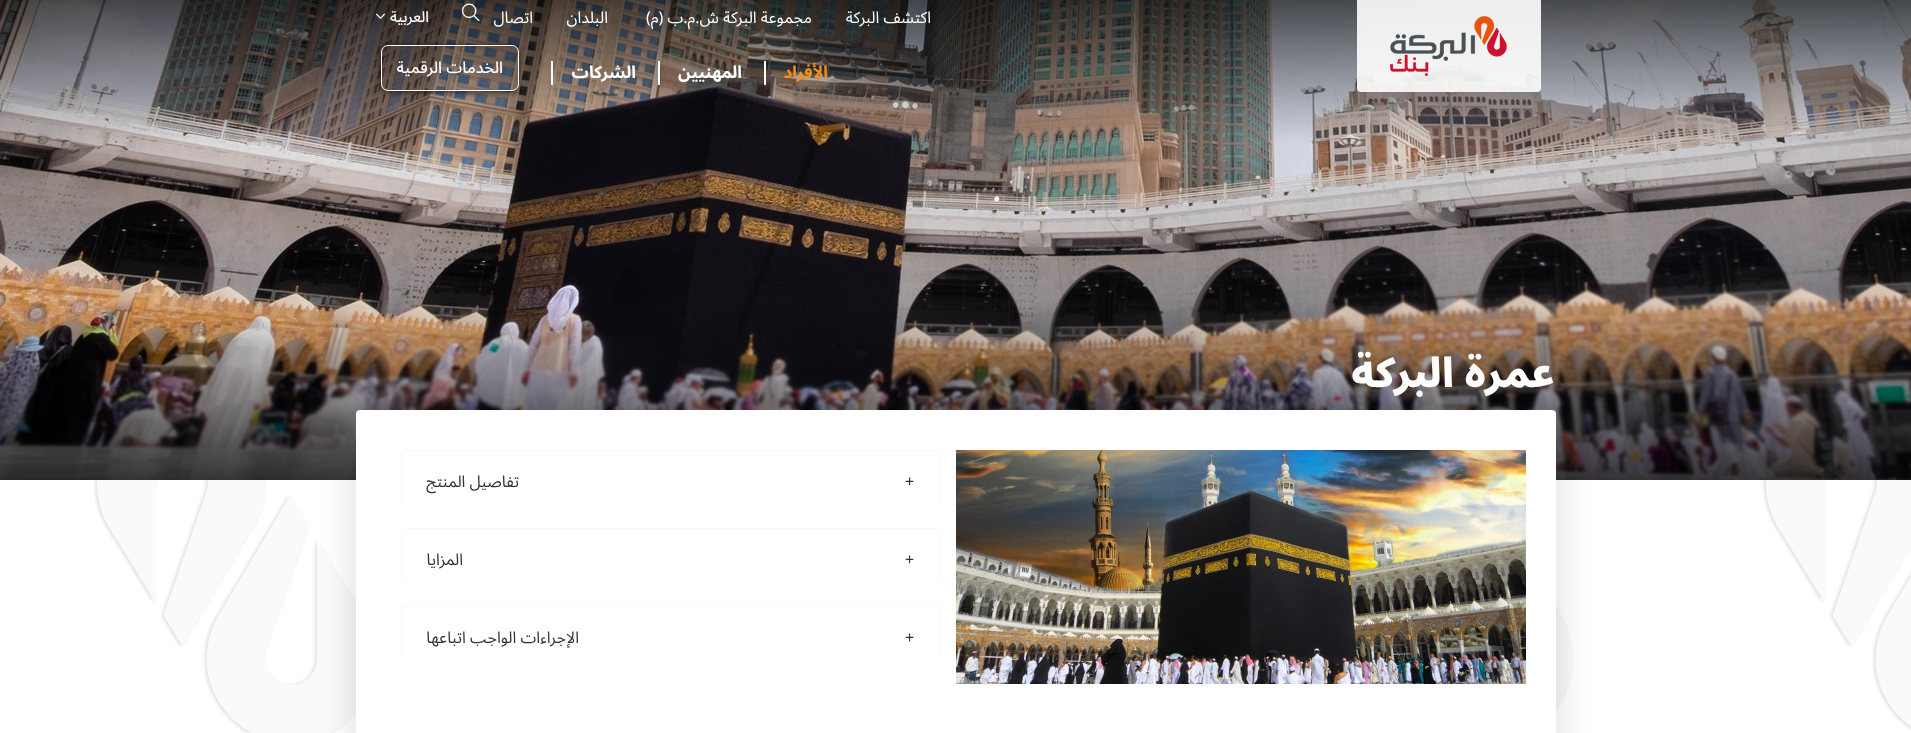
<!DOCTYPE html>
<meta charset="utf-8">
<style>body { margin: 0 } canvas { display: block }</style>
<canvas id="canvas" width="1911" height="733"></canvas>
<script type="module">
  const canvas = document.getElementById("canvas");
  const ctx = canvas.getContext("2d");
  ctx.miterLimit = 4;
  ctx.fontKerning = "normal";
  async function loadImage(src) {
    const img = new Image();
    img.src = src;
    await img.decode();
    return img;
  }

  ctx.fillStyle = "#ffffff";
  ctx.fillRect(0, 0, 1911, 733);
  ctx.drawImage(await loadImage("img1.png"), 94, 480, 1817, 253);
  ctx.drawImage(await loadImage("img5.png"), 0, 0, 1911, 480);
  ctx.fillStyle = "rgba(255, 255, 255, 0.9)";
  ctx.beginPath();
  ctx.roundRect(1357, 0, 184, 92, [0, 0, 4, 4]);
  ctx.fill();
  ctx.drawImage(await loadImage("img2.png"), 1390, 16, 117, 60);
  ctx.direction = "rtl";
  ctx.font = "16px Noto Sans Arabic";
  ctx.fillStyle = "#ffffff";
  ctx.fillText("اكتشف البركة", 931, 23);
  ctx.fillText("مجموعة البركة ش.م.ب (م)", 812, 23);
  ctx.fillText("البلدان", 608, 23);
  ctx.fillText("اتصال", 533, 23);
  ctx.drawImage(await loadImage("img3.png"), 462, 3, 18, 18);
  ctx.font = "500 15px Noto Sans Arabic";
  ctx.fillText("العربية", 429, 22);
  ctx.drawImage(await loadImage("img4.png"), 376, 13, 9, 6);
  ctx.font = "bold 17px Noto Sans Arabic";
  ctx.fillStyle = "#f78f1d";
  ctx.fillText("الأفراد", 828, 78);
  ctx.fillStyle = "#ffffff";
  ctx.fillRect(764, 61, 2, 24);
  ctx.fillText("المهنيين", 742, 78);
  ctx.fillRect(658, 61, 2, 24);
  ctx.fillText("الشركات", 636, 78);
  ctx.fillRect(551, 61, 2, 24);
  ctx.save();
  ctx.beginPath();
  ctx.moveTo(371, 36);
  ctx.lineTo(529, 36);
  ctx.lineTo(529, 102);
  ctx.lineTo(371, 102);
  ctx.closePath();
  ctx.moveTo(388, 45);
  ctx.lineTo(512, 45);
  ctx.bezierCurveTo(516, 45, 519, 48, 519, 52);
  ctx.lineTo(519, 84);
  ctx.bezierCurveTo(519, 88, 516, 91, 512, 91);
  ctx.lineTo(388, 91);
  ctx.bezierCurveTo(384, 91, 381, 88, 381, 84);
  ctx.lineTo(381, 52);
  ctx.bezierCurveTo(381, 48, 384, 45, 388, 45);
  ctx.closePath();
  ctx.clip("evenodd");
  ctx.fillStyle = "rgba(0, 0, 0, 0.7)";
  ctx.filter = "blur(3px)";
  ctx.beginPath();
  ctx.roundRect(381, 46, 138, 46, 7);
  ctx.fill();
  ctx.filter = "none";
  ctx.restore();
  ctx.beginPath();
  ctx.roundRect(381.5, 45.5, 137, 45, 6.5);
  ctx.strokeStyle = "#ffffff";
  ctx.stroke();
  ctx.font = "500 16px Noto Sans Arabic";
  ctx.fillText("الخدمات الرقمية", 503, 73);
  ctx.font = "900 40px Noto Sans Arabic";
  ctx.fillText("عمرة البركة", 1555, 387);
  ctx.fillStyle = "rgba(0, 0, 0, 0.12)";
  ctx.filter = "blur(15px)";
  ctx.beginPath();
  ctx.roundRect(351, 411, 1210, 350, 9);
  ctx.fill();
  ctx.filter = "none";
  ctx.fillStyle = "#ffffff";
  ctx.beginPath();
  ctx.roundRect(356, 410, 1200, 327, 4);
  ctx.fill();
  ctx.drawImage(await loadImage("img6.png"), 956, 450, 570, 234);
  ctx.fillStyle = "#f7f7f7";
  ctx.beginPath();
  ctx.moveTo(405, 450);
  ctx.lineTo(937, 450);
  ctx.bezierCurveTo(939, 450, 941, 452, 941, 454);
  ctx.lineTo(941, 500);
  ctx.bezierCurveTo(941, 502, 939, 504, 937, 504);
  ctx.lineTo(405, 504);
  ctx.bezierCurveTo(403, 504, 401, 502, 401, 500);
  ctx.lineTo(401, 454);
  ctx.bezierCurveTo(401, 452, 403, 450, 405, 450);
  ctx.closePath();
  ctx.moveTo(405, 451);
  ctx.lineTo(937, 451);
  ctx.bezierCurveTo(939, 451, 940, 452, 940, 454);
  ctx.lineTo(940, 500);
  ctx.bezierCurveTo(940, 502, 939, 504, 937, 504);
  ctx.lineTo(405, 504);
  ctx.bezierCurveTo(403, 504, 402, 502, 402, 500);
  ctx.lineTo(402, 454);
  ctx.bezierCurveTo(402, 452, 403, 451, 405, 451);
  ctx.closePath();
  ctx.fill("evenodd");
  ctx.direction = "ltr";
  ctx.font = "16px Noto Sans Arabic";
  ctx.fillStyle = "#333333";
  ctx.fillText("+", 905, 487);
  ctx.direction = "rtl";
  ctx.fillText("تفاصيل المنتج", 519, 487);
  ctx.fillStyle = "#f7f7f7";
  ctx.beginPath();
  ctx.moveTo(405, 528);
  ctx.lineTo(937, 528);
  ctx.bezierCurveTo(939, 528, 941, 530, 941, 532);
  ctx.lineTo(941, 578);
  ctx.bezierCurveTo(941, 580, 939, 582, 937, 582);
  ctx.lineTo(405, 582);
  ctx.bezierCurveTo(403, 582, 401, 580, 401, 578);
  ctx.lineTo(401, 532);
  ctx.bezierCurveTo(401, 530, 403, 528, 405, 528);
  ctx.closePath();
  ctx.moveTo(405, 529);
  ctx.lineTo(937, 529);
  ctx.bezierCurveTo(939, 529, 940, 530, 940, 532);
  ctx.lineTo(940, 578);
  ctx.bezierCurveTo(940, 580, 939, 582, 937, 582);
  ctx.lineTo(405, 582);
  ctx.bezierCurveTo(403, 582, 402, 580, 402, 578);
  ctx.lineTo(402, 532);
  ctx.bezierCurveTo(402, 530, 403, 529, 405, 529);
  ctx.closePath();
  ctx.fill("evenodd");
  ctx.direction = "ltr";
  ctx.fillStyle = "#333333";
  ctx.fillText("+", 905, 565);
  ctx.direction = "rtl";
  ctx.fillText("المزايا", 463, 565);
  ctx.fillStyle = "#f7f7f7";
  ctx.beginPath();
  ctx.moveTo(405, 606);
  ctx.lineTo(937, 606);
  ctx.bezierCurveTo(939, 606, 941, 608, 941, 610);
  ctx.lineTo(941, 656);
  ctx.bezierCurveTo(941, 658, 939, 660, 937, 660);
  ctx.lineTo(405, 660);
  ctx.bezierCurveTo(403, 660, 401, 658, 401, 656);
  ctx.lineTo(401, 610);
  ctx.bezierCurveTo(401, 608, 403, 606, 405, 606);
  ctx.closePath();
  ctx.moveTo(405, 607);
  ctx.lineTo(937, 607);
  ctx.bezierCurveTo(939, 607, 940, 608, 940, 610);
  ctx.lineTo(940, 656);
  ctx.bezierCurveTo(940, 658, 939, 660, 937, 660);
  ctx.lineTo(405, 660);
  ctx.bezierCurveTo(403, 660, 402, 658, 402, 656);
  ctx.lineTo(402, 610);
  ctx.bezierCurveTo(402, 608, 403, 607, 405, 607);
  ctx.closePath();
  ctx.fill("evenodd");
  ctx.direction = "ltr";
  ctx.fillStyle = "#333333";
  ctx.fillText("+", 905, 643);
  ctx.direction = "rtl";
  ctx.fillText("الإجراءات الواجب اتباعها", 579, 643);
</script>
